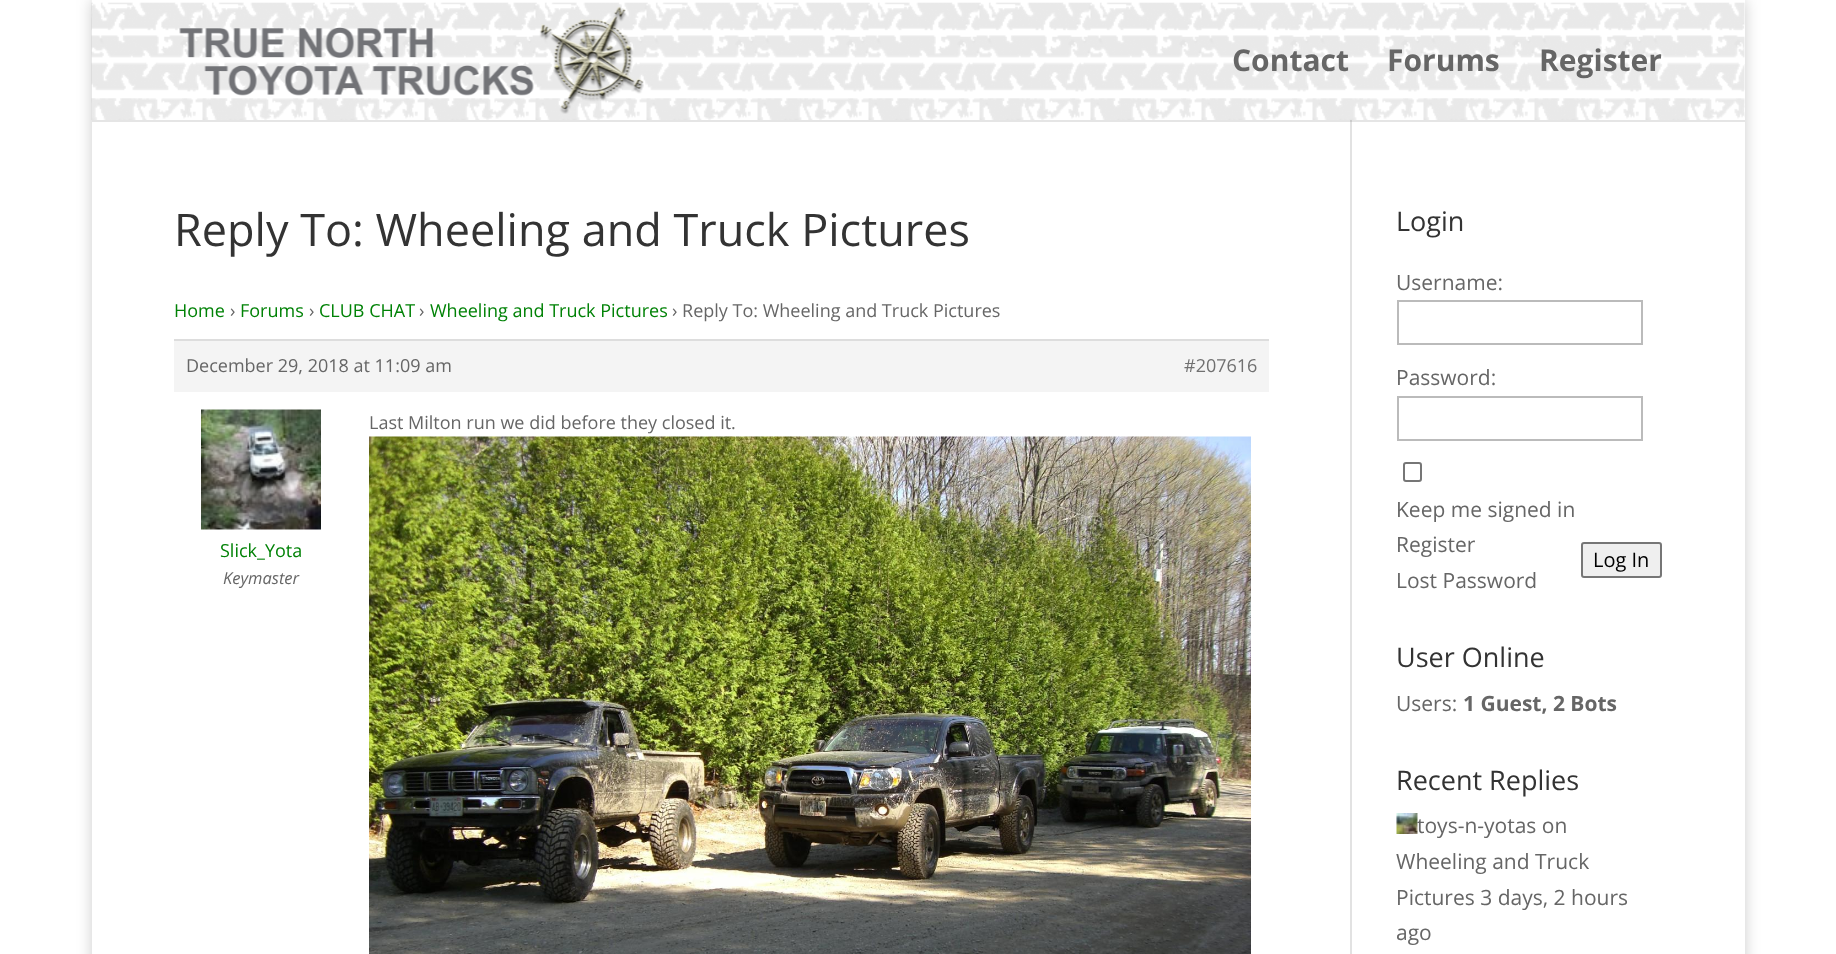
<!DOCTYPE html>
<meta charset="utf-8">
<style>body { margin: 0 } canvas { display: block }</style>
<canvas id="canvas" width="1836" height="954"></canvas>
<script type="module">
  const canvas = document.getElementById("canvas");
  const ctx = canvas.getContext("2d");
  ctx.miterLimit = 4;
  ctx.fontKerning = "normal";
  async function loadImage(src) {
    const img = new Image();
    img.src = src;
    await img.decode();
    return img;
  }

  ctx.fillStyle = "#ffffff";
  ctx.fillRect(0, 0, 1836, 954);
  ctx.fillStyle = "rgba(0, 0, 0, 0.2)";
  ctx.filter = "blur(7.5px)";
  ctx.beginPath();
  ctx.rect(92, 0, 1653, 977);
  ctx.fill();
  ctx.filter = "none";
  ctx.fillStyle = "#ffffff";
  ctx.fillRect(92, 120, 1653, 834);
  ctx.fillStyle = "#e2e2e2";
  ctx.fillRect(1350, 120, 2, 834);
  ctx.fillStyle = "rgba(0, 0, 0, 0.1)";
  ctx.beginPath();
  ctx.moveTo(92, 120);
  ctx.lineTo(92, 122);
  ctx.lineTo(1745, 122);
  ctx.lineTo(1745, 2);
  ctx.lineTo(1744, 2);
  ctx.lineTo(1744, 120);
  ctx.closePath();
  ctx.fill();
  ctx.fillStyle = "#ffffff";
  ctx.fillRect(92, 0, 1653, 120);
  ctx.drawImage(await loadImage("img1.png"), 91, 2, 1654, 118);
  ctx.drawImage(await loadImage("img2.png"), 179, 7, 465, 107);
  ctx.font = "bold 30px Open Sans";
  ctx.fillStyle = "#666666";
  ctx.fillText("Contact", 1232, 71);
  ctx.fillText("Forums", 1387, 71);
  ctx.fillText("Register", 1539, 71);
  ctx.font = "45px Open Sans";
  ctx.fillStyle = "#333333";
  ctx.fillText("Reply To: Wheeling and Truck Pictures", 174, 246);
  ctx.font = "18px Open Sans";
  ctx.fillStyle = "#008206";
  ctx.fillText("Home", 174, 317);
  ctx.fillStyle = "#666666";
  ctx.fillText("›", 230, 317);
  ctx.fillStyle = "#008206";
  ctx.fillText("Forums", 240, 317);
  ctx.fillStyle = "#666666";
  ctx.fillText("›", 309, 317);
  ctx.fillStyle = "#008206";
  ctx.fillText("CLUB CHAT", 319, 317);
  ctx.fillStyle = "#666666";
  ctx.fillText("›", 419, 317);
  ctx.fillStyle = "#008206";
  ctx.fillText("Wheeling and Truck Pictures", 430, 317);
  ctx.fillStyle = "#666666";
  ctx.fillText("› Reply To: Wheeling and Truck Pictures", 672, 317);
  ctx.fillStyle = "#f4f4f4";
  ctx.fillRect(174, 341, 1095, 51);
  ctx.fillStyle = "#dddddd";
  ctx.fillRect(174, 339, 1095, 2);
  ctx.fillStyle = "#666666";
  ctx.fillText("December 29, 2018 at 11:09 am", 186, 372);
  ctx.fillStyle = "#707070";
  ctx.fillText("#207616", 1184, 372);
  ctx.fillStyle = "#666666";
  ctx.fillText("Last Milton run we did before they closed it.", 369, 429);
  ctx.drawImage(await loadImage("img3.png"), 369, 436, 882, 518);
  ctx.drawImage(await loadImage("img4.png"), 201, 409, 120, 121);
  ctx.fillStyle = "#008206";
  ctx.fillText("Slick_Yota", 220, 557);
  ctx.font = "italic 16.5px Open Sans";
  ctx.fillStyle = "#666666";
  ctx.fillText("Keymaster", 223, 584);
  ctx.font = "27px Open Sans";
  ctx.fillStyle = "#333333";
  ctx.fillText("Login", 1396, 231);
  ctx.font = "21px Open Sans";
  ctx.fillStyle = "#666666";
  ctx.fillText("Username:", 1396, 290);
  ctx.strokeStyle = "#bbbbbb";
  ctx.lineWidth = 2;
  ctx.strokeRect(1398, 301, 244, 43);
  ctx.fillText("Password:", 1396, 385);
  ctx.strokeRect(1398, 397, 244, 43);
  ctx.beginPath();
  ctx.roundRect(1404, 463, 17, 18, 2);
  ctx.strokeStyle = "#767676";
  ctx.stroke();
  ctx.fillText("Keep me signed in", 1396, 517);
  ctx.fillText("Register", 1396, 552);
  ctx.fillText("Lost Password", 1396, 588);
  ctx.fillStyle = "#efefef";
  ctx.beginPath();
  ctx.roundRect(1582, 543, 79, 34, 2);
  ctx.fill();
  ctx.stroke();
  ctx.font = "20px Open Sans";
  ctx.fillStyle = "#000000";
  ctx.fillText("Log In", 1593, 567);
  ctx.font = "27px Open Sans";
  ctx.fillStyle = "#333333";
  ctx.fillText("User Online", 1396, 667);
  ctx.font = "21px Open Sans";
  ctx.fillStyle = "#666666";
  ctx.fillText("Users:", 1396, 711);
  ctx.font = "bold 21px Open Sans";
  ctx.fillText("1 Guest, 2 Bots", 1463, 711);
  ctx.font = "27px Open Sans";
  ctx.fillStyle = "#333333";
  ctx.fillText("Recent Replies", 1396, 790);
  ctx.drawImage(await loadImage("img5.png"), 1396, 813, 22, 21);
  ctx.font = "21px Open Sans";
  ctx.fillStyle = "#666666";
  ctx.fillText("toys-n-yotas on", 1417, 833);
  ctx.fillText("Wheeling and Truck", 1396, 869);
  ctx.fillText("Pictures 3 days, 2 hours", 1396, 905);
  ctx.fillText("ago", 1396, 940);
</script>
